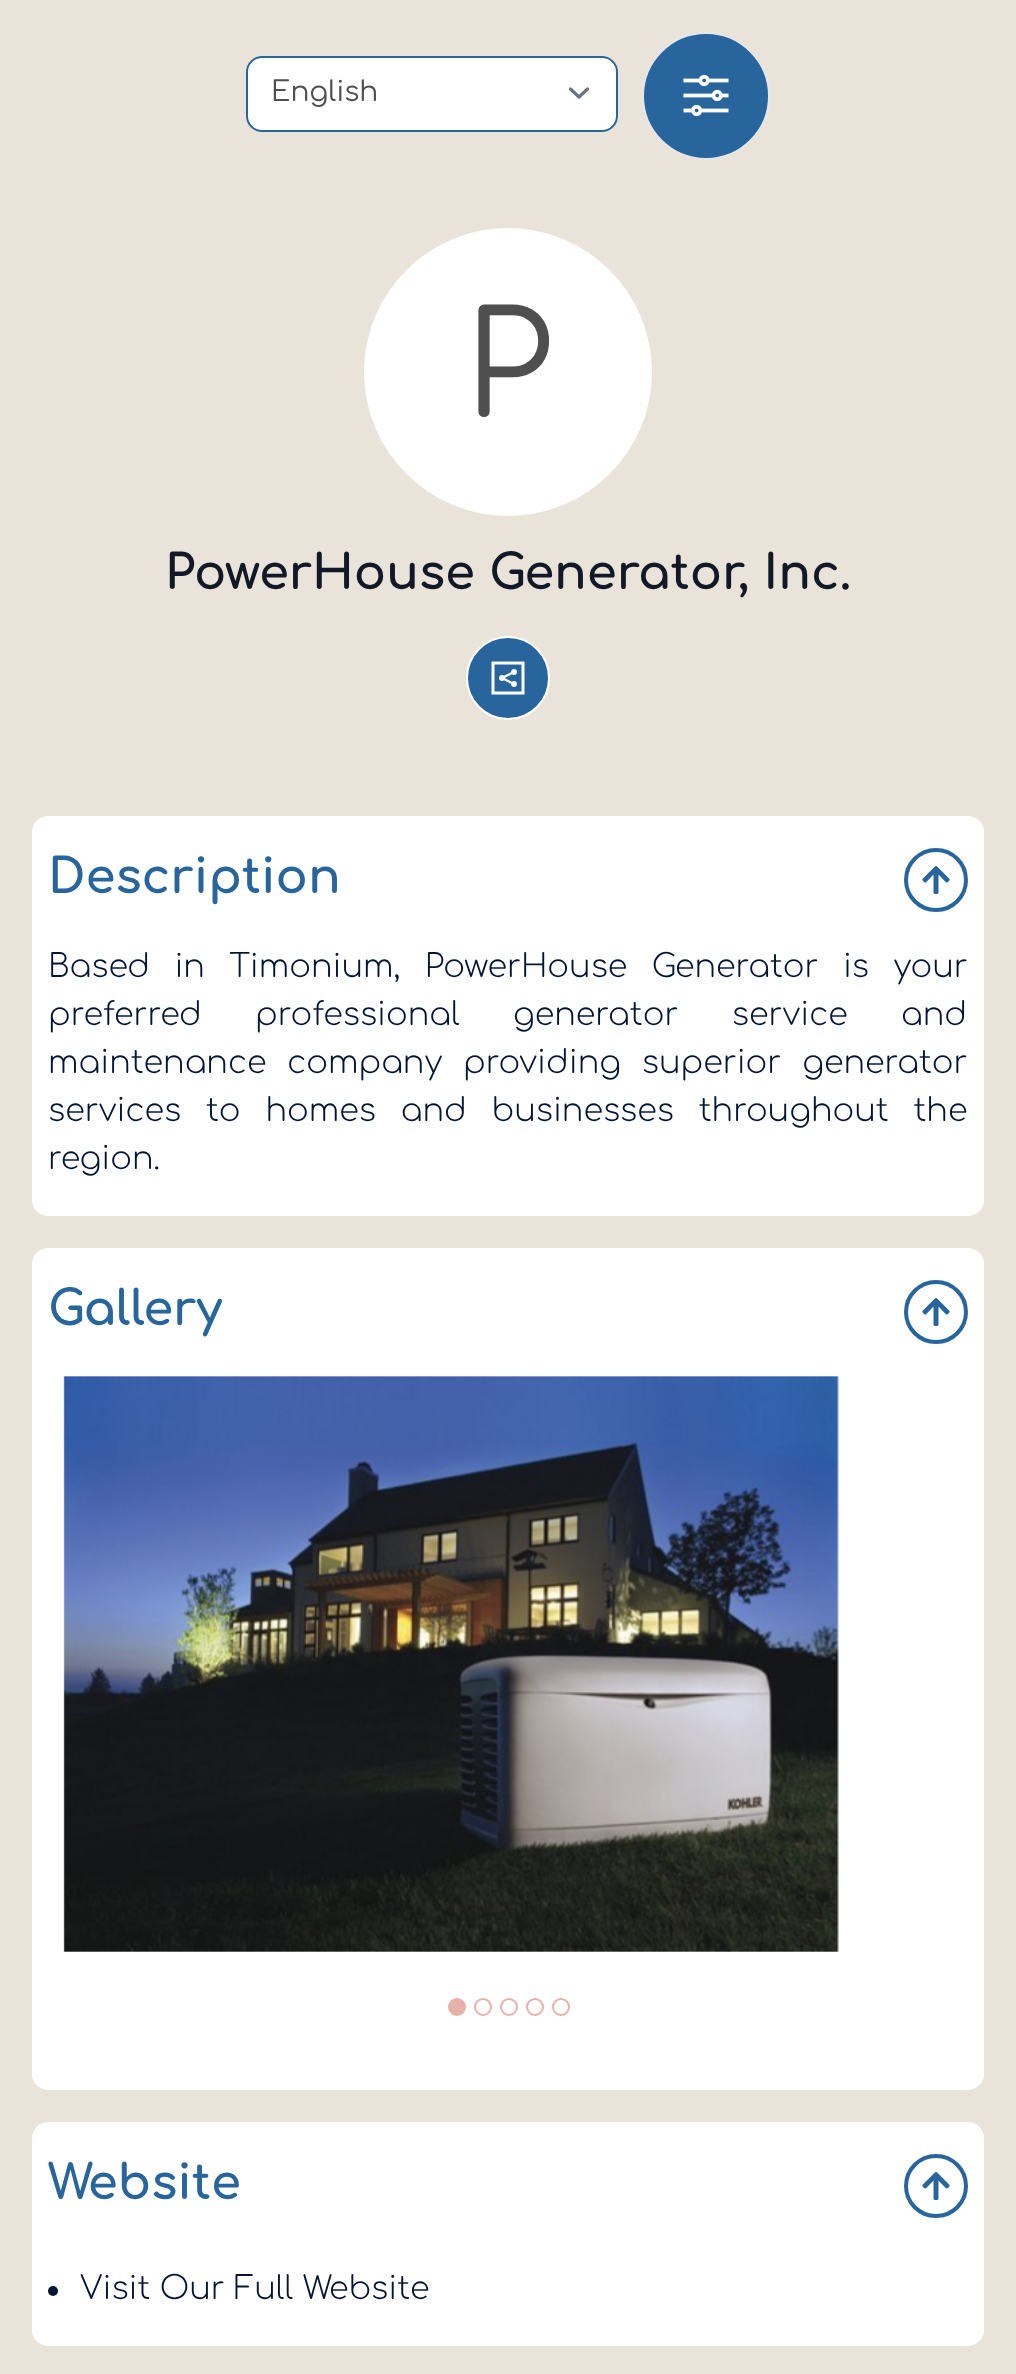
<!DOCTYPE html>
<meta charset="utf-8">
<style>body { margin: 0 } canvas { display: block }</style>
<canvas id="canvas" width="1016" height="2374"></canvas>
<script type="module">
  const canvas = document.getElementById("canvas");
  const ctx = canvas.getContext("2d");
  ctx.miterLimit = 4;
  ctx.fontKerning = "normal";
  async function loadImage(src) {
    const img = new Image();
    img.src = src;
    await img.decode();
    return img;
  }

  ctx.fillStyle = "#e9e3d9";
  ctx.fillRect(0, 0, 1016, 2374);
  ctx.fillStyle = "#ffffff";
  ctx.beginPath();
  ctx.roundRect(246, 56, 372, 76, 16);
  ctx.fill();
  ctx.beginPath();
  ctx.moveTo(570.5, 89);
  ctx.lineTo(579, 97);
  ctx.lineTo(587.5, 89);
  ctx.strokeStyle = "#6b7280";
  ctx.lineWidth = 3.2;
  ctx.lineCap = "round";
  ctx.lineJoin = "round";
  ctx.stroke();
  ctx.beginPath();
  ctx.roundRect(247, 57, 370, 74, 15);
  ctx.strokeStyle = "#28659c";
  ctx.lineWidth = 2;
  ctx.lineJoin = "miter";
  ctx.stroke();
  ctx.font = "28px Comfortaa";
  ctx.fillStyle = "#4f4f4f";
  ctx.fillText("English", 271, 101);
  ctx.fillStyle = "#28659c";
  ctx.beginPath();
  ctx.arc(706, 96, 63, 0, Math.PI * 2);
  ctx.fill();
  ctx.strokeStyle = "#e5e7eb";
  ctx.stroke();
  ctx.drawImage(await loadImage("img1.png"), 683, 74, 46, 43);
  ctx.fillStyle = "#ffffff";
  ctx.beginPath();
  ctx.arc(508, 372, 144, 0, Math.PI * 2);
  ctx.fill();
  ctx.font = "144px Comfortaa";
  ctx.fillStyle = "#4f4f4f";
  ctx.fillText("P", 464, 417);
  ctx.font = "bold 48px Comfortaa";
  ctx.fillStyle = "#111827";
  ctx.fillText("PowerHouse Generator, Inc.", 165, 589);
  ctx.fillStyle = "#28659c";
  ctx.beginPath();
  ctx.arc(508, 678, 41, 0, Math.PI * 2);
  ctx.fill();
  ctx.strokeStyle = "#ffffff";
  ctx.stroke();
  ctx.drawImage(await loadImage("img2.png"), 491, 661, 34, 34);
  ctx.fillStyle = "#ffffff";
  ctx.beginPath();
  ctx.roundRect(32, 816, 952, 400, 16);
  ctx.fill();
  ctx.fillStyle = "#28659c";
  ctx.fillText("Description", 48, 893);
  ctx.beginPath();
  ctx.arc(936, 880, 30, 0, Math.PI * 2);
  ctx.strokeStyle = "#28659c";
  ctx.lineWidth = 4;
  ctx.stroke();
  ctx.drawImage(await loadImage("img3.png"), 922, 866, 28, 28);
  ctx.wordSpacing = "15px";
  ctx.font = "300 32px Comfortaa";
  ctx.fillStyle = "#021633";
  ctx.fillText("Based in Timonium, PowerHouse Generator is your", 48, 977);
  ctx.wordSpacing = "44px";
  ctx.fillText("preferred professional generator service and", 48, 1025);
  ctx.wordSpacing = "11.5px";
  ctx.fillText("maintenance company providing superior generator", 48, 1073);
  ctx.wordSpacing = "15.5px";
  ctx.fillText("services to homes and businesses throughout the", 48, 1121);
  ctx.wordSpacing = "0px";
  ctx.fillText("region.", 48, 1169);
  ctx.fillStyle = "#ffffff";
  ctx.beginPath();
  ctx.roundRect(32, 1248, 952, 842, 16);
  ctx.fill();
  ctx.font = "bold 48px Comfortaa";
  ctx.fillStyle = "#28659c";
  ctx.fillText("Gallery", 48, 1325);
  ctx.beginPath();
  ctx.arc(936, 1312, 30, 0, Math.PI * 2);
  ctx.stroke();
  ctx.drawImage(await loadImage("img3.png"), 922, 1298, 28, 28);
  ctx.drawImage(await loadImage("img4.png"), 63, 1376, 776, 576);
  ctx.fillStyle = "#e6b1a8";
  ctx.beginPath();
  ctx.arc(457, 2007, 8, 0, Math.PI * 2);
  ctx.fill();
  ctx.strokeStyle = "#e6b1a8";
  ctx.lineWidth = 2;
  ctx.stroke();
  ctx.beginPath();
  ctx.arc(483, 2007, 8, 0, Math.PI * 2);
  ctx.stroke();
  ctx.beginPath();
  ctx.arc(509, 2007, 8, 0, Math.PI * 2);
  ctx.stroke();
  ctx.beginPath();
  ctx.arc(535, 2007, 8, 0, Math.PI * 2);
  ctx.stroke();
  ctx.beginPath();
  ctx.arc(561, 2007, 8, 0, Math.PI * 2);
  ctx.stroke();
  ctx.fillStyle = "#ffffff";
  ctx.beginPath();
  ctx.roundRect(32, 2122, 952, 224, 16);
  ctx.fill();
  ctx.fillStyle = "#28659c";
  ctx.fillText("Website", 48, 2199);
  ctx.beginPath();
  ctx.arc(936, 2186, 30, 0, Math.PI * 2);
  ctx.strokeStyle = "#28659c";
  ctx.lineWidth = 4;
  ctx.stroke();
  ctx.drawImage(await loadImage("img3.png"), 922, 2172, 28, 28);
  ctx.fillStyle = "#021633";
  ctx.beginPath();
  ctx.arc(53, 2291, 5, 0, Math.PI * 2);
  ctx.fill();
  ctx.font = "300 32px Comfortaa";
  ctx.fillText("Visit Our Full Website", 80, 2299);
</script>
